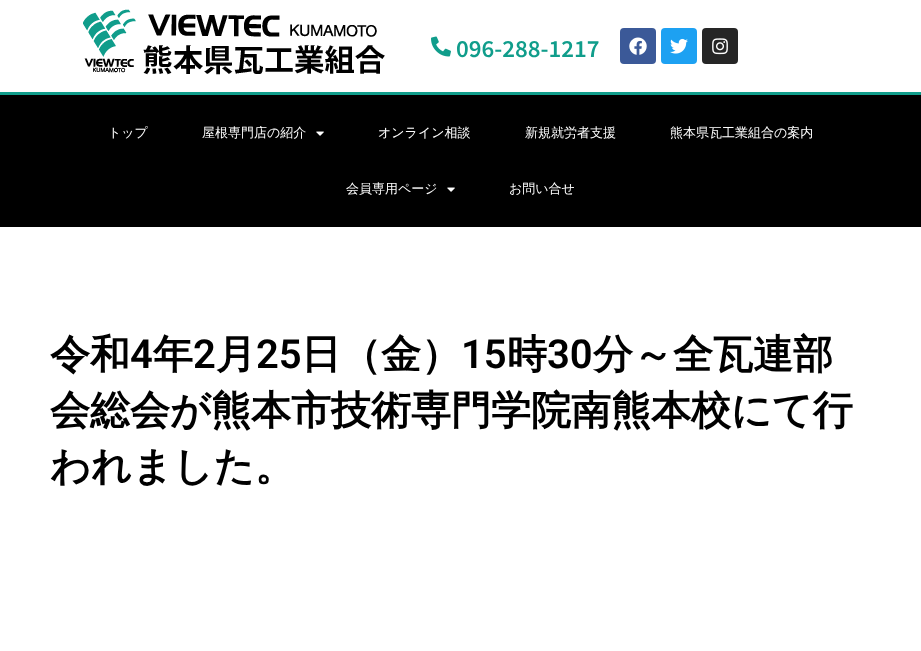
<!DOCTYPE html>
<meta charset="utf-8">
<style>body { margin: 0 } canvas { display: block }</style>
<canvas id="canvas" width="921" height="651"></canvas>
<script type="module">
  const canvas = document.getElementById("canvas");
  const ctx = canvas.getContext("2d");
  ctx.miterLimit = 4;
  ctx.fontKerning = "normal";
  async function loadImage(src) {
    const img = new Image();
    img.src = src;
    await img.decode();
    return img;
  }

  ctx.fillStyle = "#ffffff";
  ctx.fillRect(0, 0, 921, 651);
  ctx.drawImage(await loadImage("img1.png"), 83, 9, 302, 66);
  ctx.drawImage(await loadImage("img2.png"), 431, 36, 20, 21);
  ctx.font = "600 22px Noto Sans JP";
  ctx.fillStyle = "#109d8b";
  ctx.fillText("096-288-1217", 456, 57);
  ctx.fillStyle = "#3b5998";
  ctx.beginPath();
  ctx.roundRect(620, 28, 36, 36, 4);
  ctx.fill();
  ctx.drawImage(await loadImage("img3.png"), 629, 37, 18, 18);
  ctx.fillStyle = "#1da1f2";
  ctx.beginPath();
  ctx.roundRect(661, 28, 36, 36, 4);
  ctx.fill();
  ctx.drawImage(await loadImage("img4.png"), 670, 38, 18, 16);
  ctx.fillStyle = "#262626";
  ctx.beginPath();
  ctx.roundRect(702, 28, 36, 36, 4);
  ctx.fill();
  ctx.drawImage(await loadImage("img5.png"), 712, 38, 16, 17);
  ctx.fillStyle = "#000000";
  ctx.fillRect(0, 95, 921, 132);
  ctx.fillStyle = "#109d8b";
  ctx.fillRect(0, 92, 921, 3);
  ctx.font = "500 13px WenQuanYi Zen Hei";
  ctx.fillStyle = "#ffffff";
  ctx.fillText("トップ", 108, 137);
  ctx.fillText("屋根専門店の紹介", 202, 137);
  ctx.drawImage(await loadImage("img6.png"), 316, 131, 8, 5);
  ctx.fillText("オンライン相談", 378, 137);
  ctx.fillText("新規就労者支援", 525, 137);
  ctx.fillText("熊本県瓦工業組合の案内", 670, 137);
  ctx.fillText("会員専用ページ", 346, 193);
  ctx.drawImage(await loadImage("img6.png"), 447, 187, 8, 5);
  ctx.fillText("お問い合せ", 509, 193);
  ctx.font = "bold 40px WenQuanYi Zen Hei";
  ctx.fillStyle = "#000000";
  ctx.fillText("令和", 50, 368);
  ctx.font = "600 40px Roboto";
  ctx.fillText("4", 130, 368);
  ctx.font = "bold 40px WenQuanYi Zen Hei";
  ctx.fillText("年", 153, 368);
  ctx.font = "600 40px Roboto";
  ctx.fillText("2", 193, 368);
  ctx.font = "bold 40px WenQuanYi Zen Hei";
  ctx.fillText("月", 216, 368);
  ctx.font = "600 40px Roboto";
  ctx.fillText("25", 256, 368);
  ctx.font = "bold 40px WenQuanYi Zen Hei";
  ctx.fillText("日（金）", 301, 368);
  ctx.font = "600 40px Roboto";
  ctx.fillText("15", 461, 368);
  ctx.font = "bold 40px WenQuanYi Zen Hei";
  ctx.fillText("時", 507, 368);
  ctx.font = "600 40px Roboto";
  ctx.fillText("30", 547, 368);
  ctx.font = "bold 40px WenQuanYi Zen Hei";
  ctx.fillText("分～全瓦連部", 593, 368);
  ctx.fillText("会総会が熊本市技術専門学院南熊本校にて行", 50, 424);
  ctx.fillText("われました。", 50, 480);
</script>
